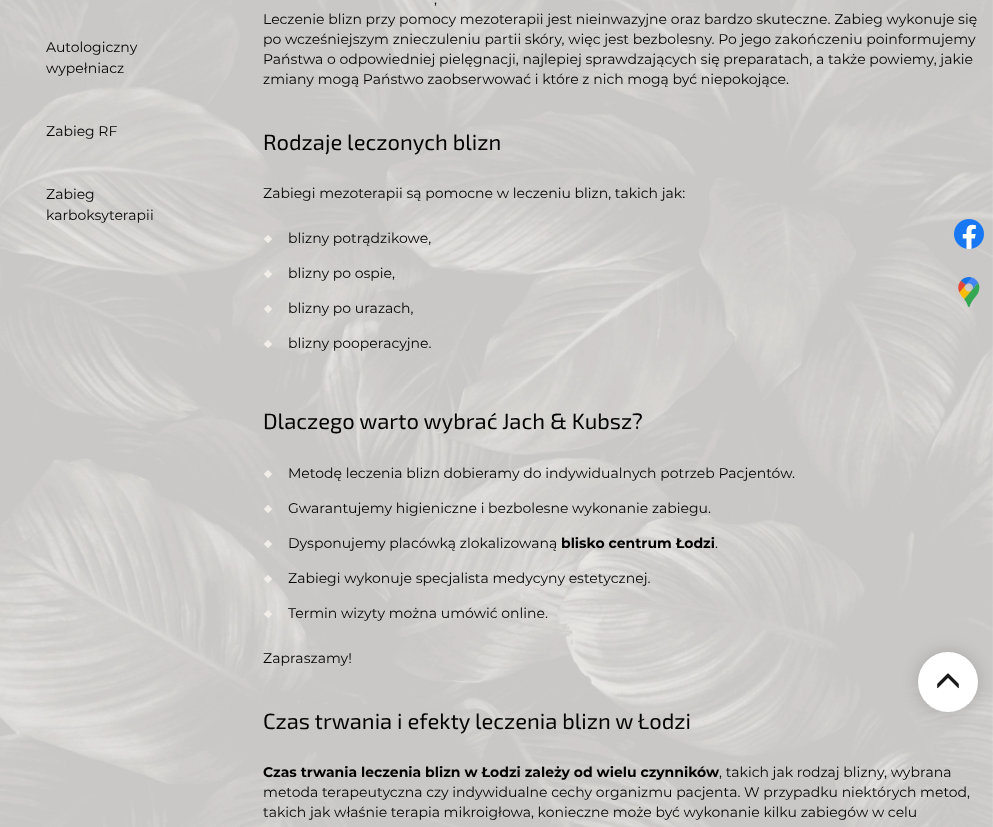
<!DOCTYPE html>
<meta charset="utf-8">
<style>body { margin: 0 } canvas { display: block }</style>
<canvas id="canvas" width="993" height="827"></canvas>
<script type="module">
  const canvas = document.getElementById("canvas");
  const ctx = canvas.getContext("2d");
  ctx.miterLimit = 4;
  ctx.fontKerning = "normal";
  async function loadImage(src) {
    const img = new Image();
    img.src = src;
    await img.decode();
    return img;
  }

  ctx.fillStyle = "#ffffff";
  ctx.fillRect(0, 0, 993, 827);
  ctx.drawImage(await loadImage("img1.png"), 0, 0, 993, 827);
  ctx.font = "14px Montserrat";
  ctx.fillStyle = "#000000";
  ctx.fillText("Autologiczny", 46, 52);
  ctx.fillText("wypełniacz", 46, 73);
  ctx.fillText("Zabieg RF", 46, 136);
  ctx.fillText("Zabieg", 46, 199);
  ctx.fillText("karboksyterapii", 46, 220);
  ctx.fillText(",", 434, 4);
  ctx.fillText("Leczenie blizn przy pomocy mezoterapii jest nieinwazyjne oraz bardzo skuteczne. Zabieg wykonuje się", 263, 24);
  ctx.fillText("po wcześniejszym znieczuleniu partii skóry, więc jest bezbolesny. Po jego zakończeniu poinformujemy", 263, 44);
  ctx.fillText("Państwa o odpowiedniej pielęgnacji, najlepiej sprawdzających się preparatach, a także powiemy, jakie", 263, 64);
  ctx.fillText("zmiany mogą Państwo zaobserwować i które z nich mogą być niepokojące.", 263, 84);
  ctx.font = "22px 'Exo 2'";
  ctx.fillText("Rodzaje leczonych blizn", 263, 150);
  ctx.font = "14px Montserrat";
  ctx.fillText("Zabiegi mezoterapii są pomocne w leczeniu blizn, takich jak:", 263, 198);
  ctx.drawImage(await loadImage("img2.png"), 264, 235, 8, 8);
  ctx.fillText("blizny potrądzikowe,", 288, 243);
  ctx.drawImage(await loadImage("img3.png"), 264, 270, 8, 8);
  ctx.fillText("blizny po ospie,", 288, 278);
  ctx.drawImage(await loadImage("img4.png"), 264, 305, 8, 8);
  ctx.fillText("blizny po urazach,", 288, 313);
  ctx.drawImage(await loadImage("img5.png"), 264, 340, 8, 8);
  ctx.fillText("blizny pooperacyjne.", 288, 348);
  ctx.font = "22px 'Exo 2'";
  ctx.fillText("Dlaczego warto wybrać Jach & Kubsz?", 263, 429);
  ctx.drawImage(await loadImage("img6.png"), 264, 470, 8, 8);
  ctx.font = "14px Montserrat";
  ctx.fillText("Metodę leczenia blizn dobieramy do indywidualnych potrzeb Pacjentów.", 288, 478);
  ctx.drawImage(await loadImage("img7.png"), 264, 505, 8, 8);
  ctx.fillText("Gwarantujemy higieniczne i bezbolesne wykonanie zabiegu.", 288, 513);
  ctx.drawImage(await loadImage("img8.png"), 264, 540, 8, 8);
  ctx.fillText("Dysponujemy placówką zlokalizowaną", 288, 548);
  ctx.font = "bold 14px Montserrat";
  ctx.fillText("blisko centrum Łodzi", 561, 548);
  ctx.font = "14px Montserrat";
  ctx.fillText(".", 715, 548);
  ctx.drawImage(await loadImage("img9.png"), 264, 575, 8, 8);
  ctx.fillText("Zabiegi wykonuje specjalista medycyny estetycznej.", 288, 583);
  ctx.drawImage(await loadImage("img10.png"), 264, 610, 8, 8);
  ctx.fillText("Termin wizyty można umówić online.", 288, 618);
  ctx.fillText("Zapraszamy!", 263, 663);
  ctx.font = "22px 'Exo 2'";
  ctx.fillText("Czas trwania i efekty leczenia blizn w Łodzi", 263, 729);
  ctx.font = "bold 14px Montserrat";
  ctx.fillText("Czas trwania leczenia blizn w Łodzi zależy od wielu czynników", 263, 777);
  ctx.font = "14px Montserrat";
  ctx.fillText(", takich jak rodzaj blizny, wybrana", 719, 777);
  ctx.fillText("metoda terapeutyczna czy indywidualne cechy organizmu pacjenta. W przypadku niektórych metod,", 263, 797);
  ctx.fillText("takich jak właśnie terapia mikroigłowa, konieczne może być wykonanie kilku zabiegów w celu", 263, 817);
  ctx.drawImage(await loadImage("img11.png"), 954, 219, 30, 30);
  ctx.drawImage(await loadImage("img12.png"), 958, 277, 22, 30);
  ctx.fillStyle = "rgba(0, 0, 0, 0.15)";
  ctx.filter = "blur(8px)";
  ctx.beginPath();
  ctx.roundRect(917, 651, 62, 62, 31);
  ctx.fill();
  ctx.filter = "none";
  ctx.fillStyle = "#ffffff";
  ctx.beginPath();
  ctx.arc(948, 682, 30, 0, Math.PI * 2);
  ctx.fill();
  ctx.drawImage(await loadImage("img13.png"), 937, 673, 22, 16);
</script>
